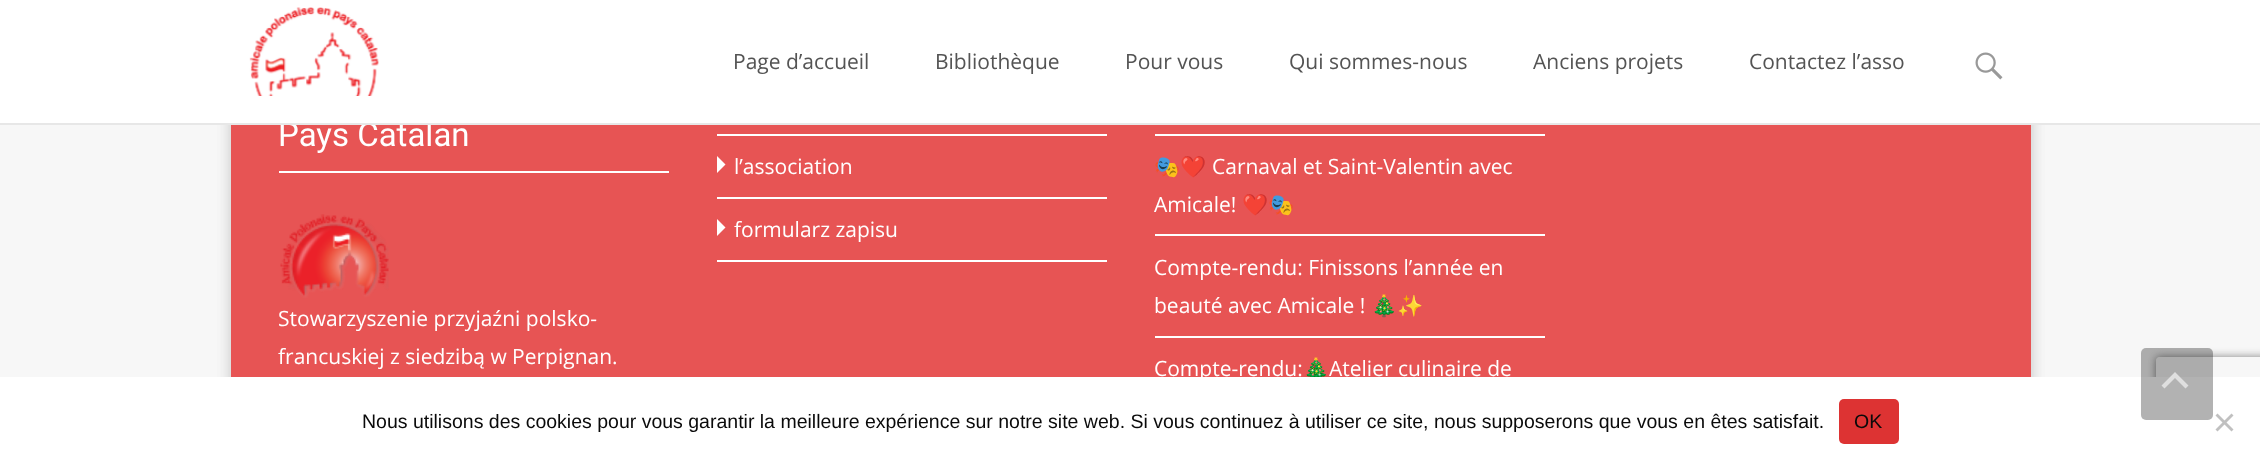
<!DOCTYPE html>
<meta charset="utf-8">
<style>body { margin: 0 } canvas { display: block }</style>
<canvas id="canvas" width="2260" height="467"></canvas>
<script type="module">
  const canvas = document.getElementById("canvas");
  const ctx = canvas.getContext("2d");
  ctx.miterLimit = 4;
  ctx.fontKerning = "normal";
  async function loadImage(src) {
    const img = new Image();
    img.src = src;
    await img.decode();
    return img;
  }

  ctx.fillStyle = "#f7f7f7";
  ctx.fillRect(0, 0, 2260, 467);
  ctx.fillStyle = "rgba(0, 0, 0, 0.1)";
  ctx.filter = "blur(7.5px)";
  ctx.beginPath();
  ctx.roundRect(231, -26, 1800, 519, 3);
  ctx.fill();
  ctx.filter = "none";
  ctx.filter = "blur(7.5px)";
  ctx.beginPath();
  ctx.roundRect(231, -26, 1800, 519, 3);
  ctx.fill();
  ctx.filter = "none";
  ctx.fillStyle = "#ffffff";
  ctx.fillRect(0, 0, 2260, 123);
  ctx.fillStyle = "#e75454";
  ctx.fillRect(231, 125, 1800, 252);
  ctx.font = "33px Roboto";
  ctx.fillStyle = "#ffffff";
  ctx.fillText("Pays Catalan", 278, 146);
  ctx.fillStyle = "#e7e7e7";
  ctx.fillRect(0, 123, 2260, 2);
  ctx.drawImage(await loadImage("img1.png"), 249, 7, 130, 89);
  ctx.font = "21px Open Sans";
  ctx.fillStyle = "#545454";
  ctx.fillText("Page d’accueil", 733, 69);
  ctx.fillText("Bibliothèque", 935, 69);
  ctx.fillText("Pour vous", 1125, 69);
  ctx.fillText("Qui sommes-nous", 1289, 69);
  ctx.fillText("Anciens projets", 1533, 69);
  ctx.fillText("Contactez l’asso", 1749, 69);
  ctx.drawImage(await loadImage("img2.png"), 1975, 52, 28, 28);
  ctx.fillStyle = "#ffffff";
  ctx.fillRect(279, 171, 390, 2);
  ctx.drawImage(await loadImage("img3.png"), 280, 214, 109, 84);
  ctx.fillText("Stowarzyszenie przyjaźni polsko-", 278, 326);
  ctx.fillText("francuskiej z siedzibą w Perpignan.", 278, 364);
  ctx.fillRect(717, 134, 390, 2);
  ctx.fillRect(717, 197, 390, 2);
  ctx.beginPath();
  ctx.moveTo(717, 173);
  ctx.lineTo(725.5, 164.5);
  ctx.lineTo(717, 156);
  ctx.closePath();
  ctx.fill();
  ctx.fillText("l’association", 734, 174);
  ctx.fillRect(717, 260, 390, 2);
  ctx.beginPath();
  ctx.moveTo(717, 236);
  ctx.lineTo(725.5, 227.5);
  ctx.lineTo(717, 219);
  ctx.closePath();
  ctx.fill();
  ctx.fillText("formularz zapisu", 734, 237);
  ctx.fillRect(1155, 134, 390, 2);
  ctx.fillRect(1155, 234, 390, 2);
  ctx.font = "21px Noto Color Emoji";
  ctx.fillText("🎭❤️", 1154, 174);
  ctx.font = "21px Open Sans";
  ctx.fillText("Carnaval et Saint-Valentin avec", 1212, 174);
  ctx.fillText("Amicale!", 1154, 212);
  ctx.font = "21px Noto Color Emoji";
  ctx.fillText("❤️🎭", 1242, 212);
  ctx.fillRect(1155, 336, 390, 2);
  ctx.font = "21px Open Sans";
  ctx.fillText("Compte-rendu: Finissons l’année en", 1154, 275);
  ctx.fillText("beauté avec Amicale !", 1154, 313);
  ctx.font = "21px Noto Color Emoji";
  ctx.fillText("🎄✨", 1371, 313);
  ctx.font = "21px Open Sans";
  ctx.fillText("Compte-rendu:", 1154, 376);
  ctx.font = "21px Noto Color Emoji";
  ctx.fillText("🎄", 1303, 376);
  ctx.font = "21px Open Sans";
  ctx.fillText("Atelier culinaire de", 1329, 376);
  ctx.save();
  ctx.beginPath();
  ctx.moveTo(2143, 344);
  ctx.lineTo(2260, 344);
  ctx.lineTo(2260, 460);
  ctx.lineTo(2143, 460);
  ctx.closePath();
  ctx.moveTo(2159, 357);
  ctx.lineTo(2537, 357);
  ctx.bezierCurveTo(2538.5, 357, 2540, 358.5, 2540, 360);
  ctx.lineTo(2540, 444);
  ctx.bezierCurveTo(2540, 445.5, 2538.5, 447, 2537, 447);
  ctx.lineTo(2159, 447);
  ctx.bezierCurveTo(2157.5, 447, 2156, 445.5, 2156, 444);
  ctx.lineTo(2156, 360);
  ctx.bezierCurveTo(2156, 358.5, 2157.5, 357, 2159, 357);
  ctx.closePath();
  ctx.clip("evenodd");
  ctx.fillStyle = "#808080";
  ctx.filter = "blur(4px)";
  ctx.beginPath();
  ctx.roundRect(2156, 357, 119, 90, 3);
  ctx.fill();
  ctx.filter = "none";
  ctx.restore();
  ctx.fillRect(0, 377, 2260, 90);
  ctx.fillStyle = "rgba(0, 0, 0, 0.3)";
  ctx.beginPath();
  ctx.roundRect(2141, 348, 72, 72, 5);
  ctx.fill();
  ctx.fillStyle = "#dfdfdf";
  ctx.beginPath();
  ctx.moveTo(2161.5, 385.5);
  ctx.lineTo(2175, 372);
  ctx.lineTo(2188.5, 385.5);
  ctx.lineTo(2185.5, 388.5);
  ctx.lineTo(2175, 378);
  ctx.lineTo(2164.5, 388.5);
  ctx.closePath();
  ctx.fill();
  ctx.font = "19.5px Liberation Sans";
  ctx.fillStyle = "#0a0a0a";
  ctx.fillText("Nous utilisons des cookies pour vous garantir la meilleure expérience sur notre site web. Si vous continuez à utiliser ce site, nous supposerons que vous en êtes satisfait.", 362, 428);
  ctx.fillStyle = "#dd3333";
  ctx.beginPath();
  ctx.roundRect(1839, 399, 60, 45, 5);
  ctx.fill();
  ctx.fillStyle = "#0a0a0a";
  ctx.fillText("OK", 1854, 428);
  ctx.fillStyle = "#c0c0c0";
  ctx.beginPath();
  ctx.moveTo(2231.5, 413.5);
  ctx.lineTo(2233.5, 415.5);
  ctx.lineTo(2217.5, 431.5);
  ctx.lineTo(2215.5, 429.5);
  ctx.closePath();
  ctx.fill();
  ctx.beginPath();
  ctx.moveTo(2215.5, 415.5);
  ctx.lineTo(2217.5, 413.5);
  ctx.lineTo(2233.5, 429.5);
  ctx.lineTo(2231.5, 431.5);
  ctx.closePath();
  ctx.fill();
</script>
